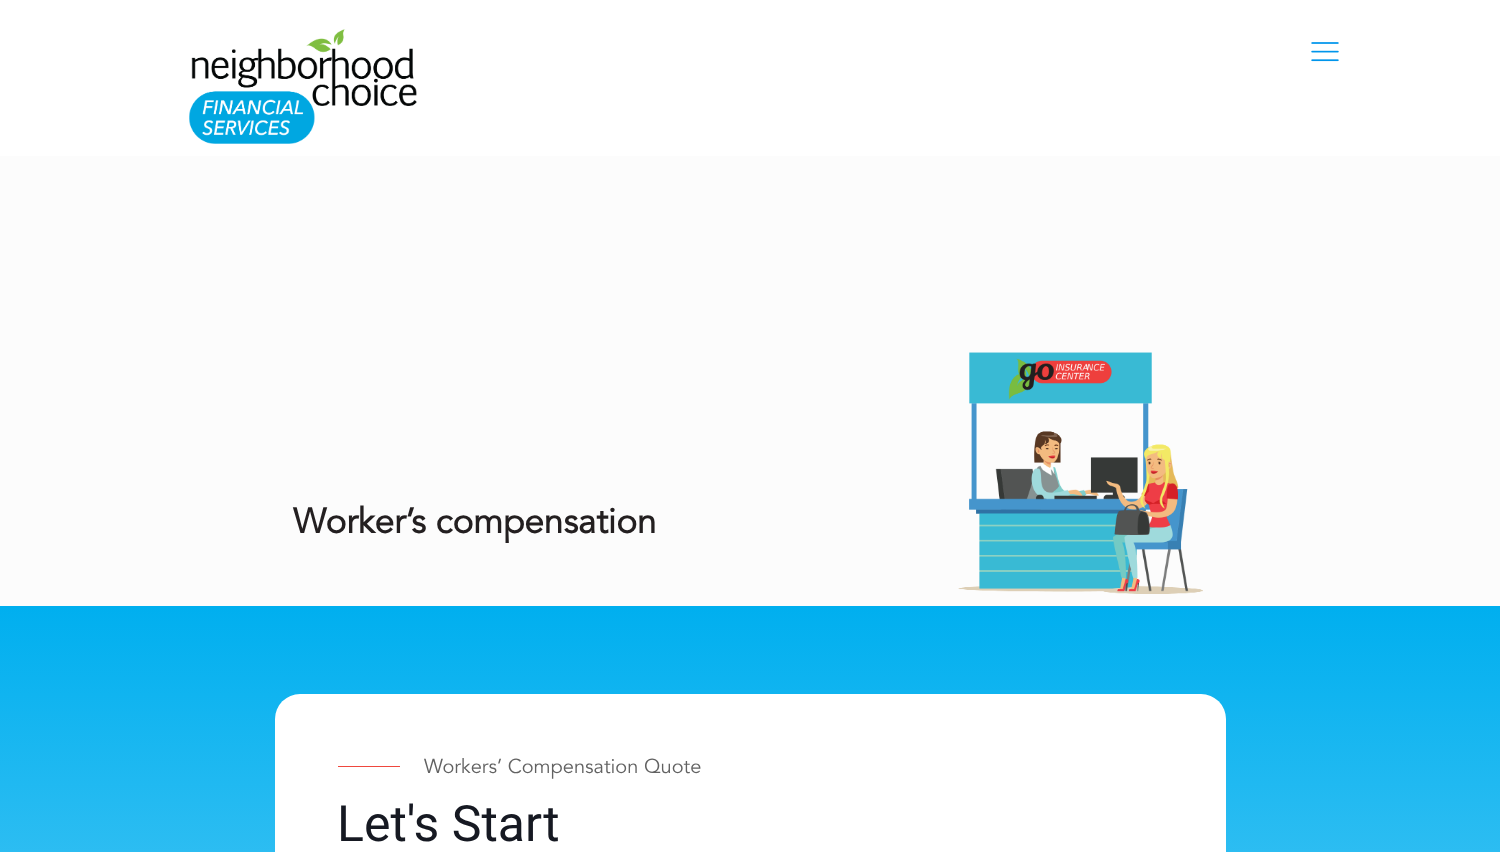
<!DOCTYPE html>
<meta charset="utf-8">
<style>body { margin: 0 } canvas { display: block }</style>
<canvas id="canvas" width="1500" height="852"></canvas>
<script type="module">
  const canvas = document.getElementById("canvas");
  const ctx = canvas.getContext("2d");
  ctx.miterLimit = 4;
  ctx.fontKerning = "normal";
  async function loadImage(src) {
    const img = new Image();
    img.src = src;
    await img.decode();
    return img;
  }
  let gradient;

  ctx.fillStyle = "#fcfcfc";
  ctx.fillRect(0, 0, 1500, 852);
  ctx.fillStyle = "#ffffff";
  ctx.fillRect(0, 0, 1500, 156);
  ctx.drawImage(await loadImage("img1.png"), 189, 29, 228, 115);
  ctx.drawImage(await loadImage("img2.png"), 1311, 42, 28, 20);
  ctx.font = "bold 35px Avenir";
  ctx.fillStyle = "#231f20";
  ctx.fillText("Worker’s compensation", 293, 533);
  ctx.drawImage(await loadImage("img3.png"), 958, 352, 245, 242);
  gradient = ctx.createLinearGradient(750, 606, 750, 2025);
  gradient.addColorStop(0, "#00afef");
  gradient.addColorStop(1, "#ffffff");
  ctx.fillStyle = gradient;
  ctx.fillRect(0, 606, 1500, 246);
  ctx.fillStyle = "#ffffff";
  ctx.beginPath();
  ctx.roundRect(275, 694, 951, 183, 25);
  ctx.fill();
  ctx.font = "20px Avenir";
  ctx.fillStyle = "#626262";
  ctx.fillText("Workers’ Compensation Quote", 424, 773);
  ctx.fillStyle = "#ef483e";
  ctx.fillRect(338, 766, 62, 1);
  ctx.font = "50px Roboto";
  ctx.fillStyle = "#161922";
  ctx.fillText("Let's Start", 337, 841);
</script>
